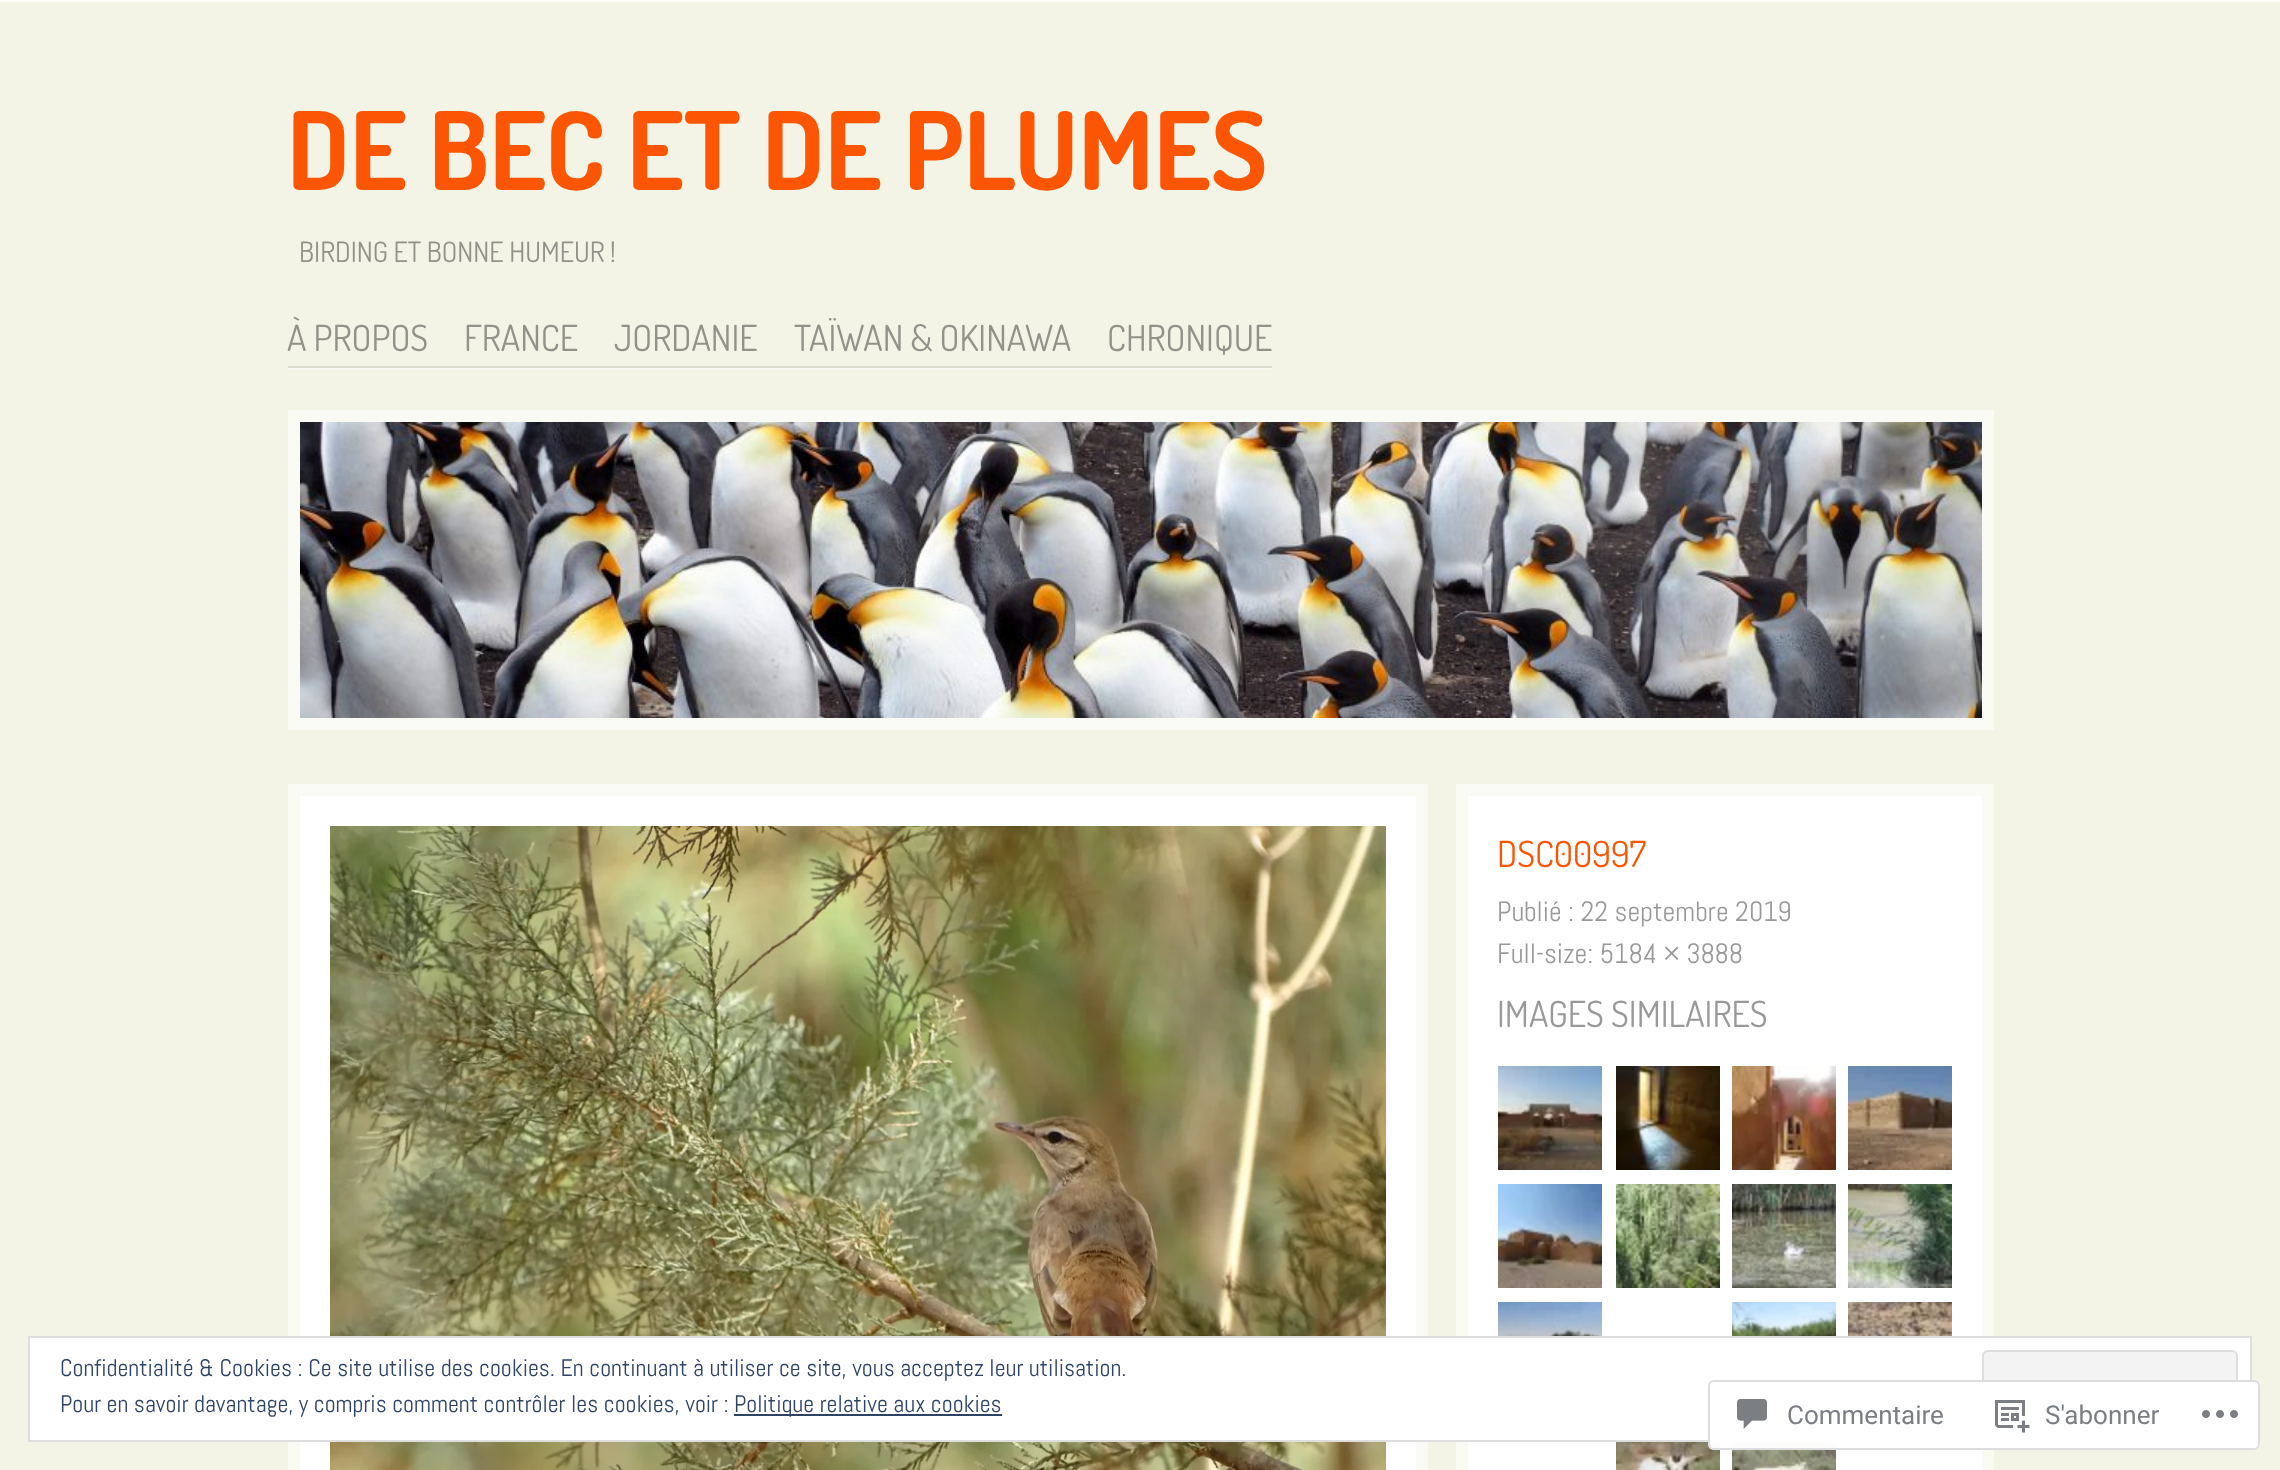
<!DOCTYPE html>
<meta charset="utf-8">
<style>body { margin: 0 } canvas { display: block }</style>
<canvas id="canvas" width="2280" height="1470"></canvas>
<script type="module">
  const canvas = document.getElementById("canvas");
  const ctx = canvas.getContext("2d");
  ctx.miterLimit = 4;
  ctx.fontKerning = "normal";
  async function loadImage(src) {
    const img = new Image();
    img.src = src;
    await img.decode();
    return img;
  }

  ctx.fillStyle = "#f3f4e6";
  ctx.fillRect(0, 0, 2280, 1470);
  ctx.fillStyle = "#fafbf5";
  ctx.fillRect(0, 0, 2280, 2);
  ctx.font = "bold 108px Dosis";
  ctx.fillStyle = "#fc5605";
  ctx.fillText("DE BEC ET DE PLUMES", 287, 190);
  ctx.font = "28px Dosis";
  ctx.fillStyle = "#92928a";
  ctx.fillText("BIRDING ET BONNE HUMEUR !", 299, 262);
  ctx.fillStyle = "#f8f8f0";
  ctx.fillRect(288, 368, 984, 2);
  ctx.fillStyle = "#dbdccf";
  ctx.fillRect(288, 366, 984, 2);
  ctx.font = "36px Dosis";
  ctx.fillStyle = "#92928a";
  ctx.fillText("À PROPOS", 287, 351);
  ctx.fillText("FRANCE", 464, 351);
  ctx.fillText("JORDANIE", 614, 351);
  ctx.fillText("TAÏWAN & OKINAWA", 794, 351);
  ctx.fillText("CHRONIQUE", 1107, 351);
  ctx.strokeStyle = "#f9faf3";
  ctx.lineWidth = 12;
  ctx.strokeRect(294, 416, 1694, 308);
  ctx.drawImage(await loadImage("img1.png"), 300, 422, 1682, 296);
  ctx.fillStyle = "#ffffff";
  ctx.beginPath();
  ctx.rect(294, 790, 1128, 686);
  ctx.fill();
  ctx.stroke();
  ctx.drawImage(await loadImage("img2.png"), 330, 826, 1056, 644);
  ctx.beginPath();
  ctx.rect(1462, 790, 526, 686);
  ctx.fill();
  ctx.stroke();
  ctx.fillStyle = "#fc5605";
  ctx.fillText("DSC00997", 1497, 867);
  ctx.font = "28px Abel";
  ctx.fillStyle = "#999999";
  ctx.fillText("Publié : 22 septembre 2019", 1497, 921);
  ctx.fillText("Full-size: 5184 × 3888", 1497, 963);
  ctx.font = "36px Dosis";
  ctx.fillText("IMAGES SIMILAIRES", 1497, 1027);
  ctx.drawImage(await loadImage("img3.png"), 1498, 1066, 104, 104);
  ctx.drawImage(await loadImage("img4.png"), 1616, 1066, 104, 104);
  ctx.drawImage(await loadImage("img5.png"), 1732, 1066, 104, 104);
  ctx.drawImage(await loadImage("img6.png"), 1848, 1066, 104, 104);
  ctx.drawImage(await loadImage("img7.png"), 1498, 1184, 104, 104);
  ctx.drawImage(await loadImage("img8.png"), 1616, 1184, 104, 104);
  ctx.drawImage(await loadImage("img9.png"), 1732, 1184, 104, 104);
  ctx.drawImage(await loadImage("img10.png"), 1848, 1184, 104, 104);
  ctx.drawImage(await loadImage("img11.png"), 1498, 1302, 104, 34);
  ctx.drawImage(await loadImage("img12.png"), 1732, 1302, 104, 34);
  ctx.drawImage(await loadImage("img13.png"), 1848, 1302, 104, 34);
  ctx.drawImage(await loadImage("img14.png"), 1616, 1442, 104, 28);
  ctx.drawImage(await loadImage("img15.png"), 1732, 1442, 104, 28);
  ctx.fillStyle = "#ffffff";
  ctx.beginPath();
  ctx.rect(29, 1337, 2222, 104);
  ctx.fill();
  ctx.strokeStyle = "#dedede";
  ctx.lineWidth = 2;
  ctx.stroke();
  ctx.font = "24px Abel";
  ctx.fillStyle = "#2e4467";
  ctx.fillText("Confidentialité & Cookies : Ce site utilise des cookies. En continuant à utiliser ce site, vous acceptez leur utilisation.", 60, 1376);
  ctx.fillStyle = "#f3f3f3";
  ctx.beginPath();
  ctx.roundRect(1983, 1351, 254, 76, 5);
  ctx.fill();
  ctx.stroke();
  ctx.fillStyle = "#2e4467";
  ctx.fillText("Pour en savoir davantage, y compris comment contrôler les cookies, voir :", 60, 1412);
  ctx.fillRect(734, 1414, 268, 2);
  ctx.fillText("Politique relative aux cookies", 734, 1412);
  ctx.fillStyle = "rgba(255, 255, 255, 0.98)";
  ctx.beginPath();
  ctx.roundRect(1708, 1380, 552, 70, 6);
  ctx.fill();
  ctx.beginPath();
  ctx.roundRect(1709, 1381, 550, 68, 5);
  ctx.strokeStyle = "rgba(220, 220, 222, 0.98)";
  ctx.stroke();
  ctx.drawImage(await loadImage("img16.png"), 1737, 1399, 30, 30);
  ctx.font = "26px Roboto";
  ctx.fillStyle = "#7b7f85";
  ctx.fillText("Commentaire", 1787, 1424);
  ctx.drawImage(await loadImage("img17.png"), 1995, 1400, 35, 33);
  ctx.fillText("S'abonner", 2045, 1424);
  ctx.drawImage(await loadImage("img18.png"), 2202, 1410, 36, 8);
</script>
